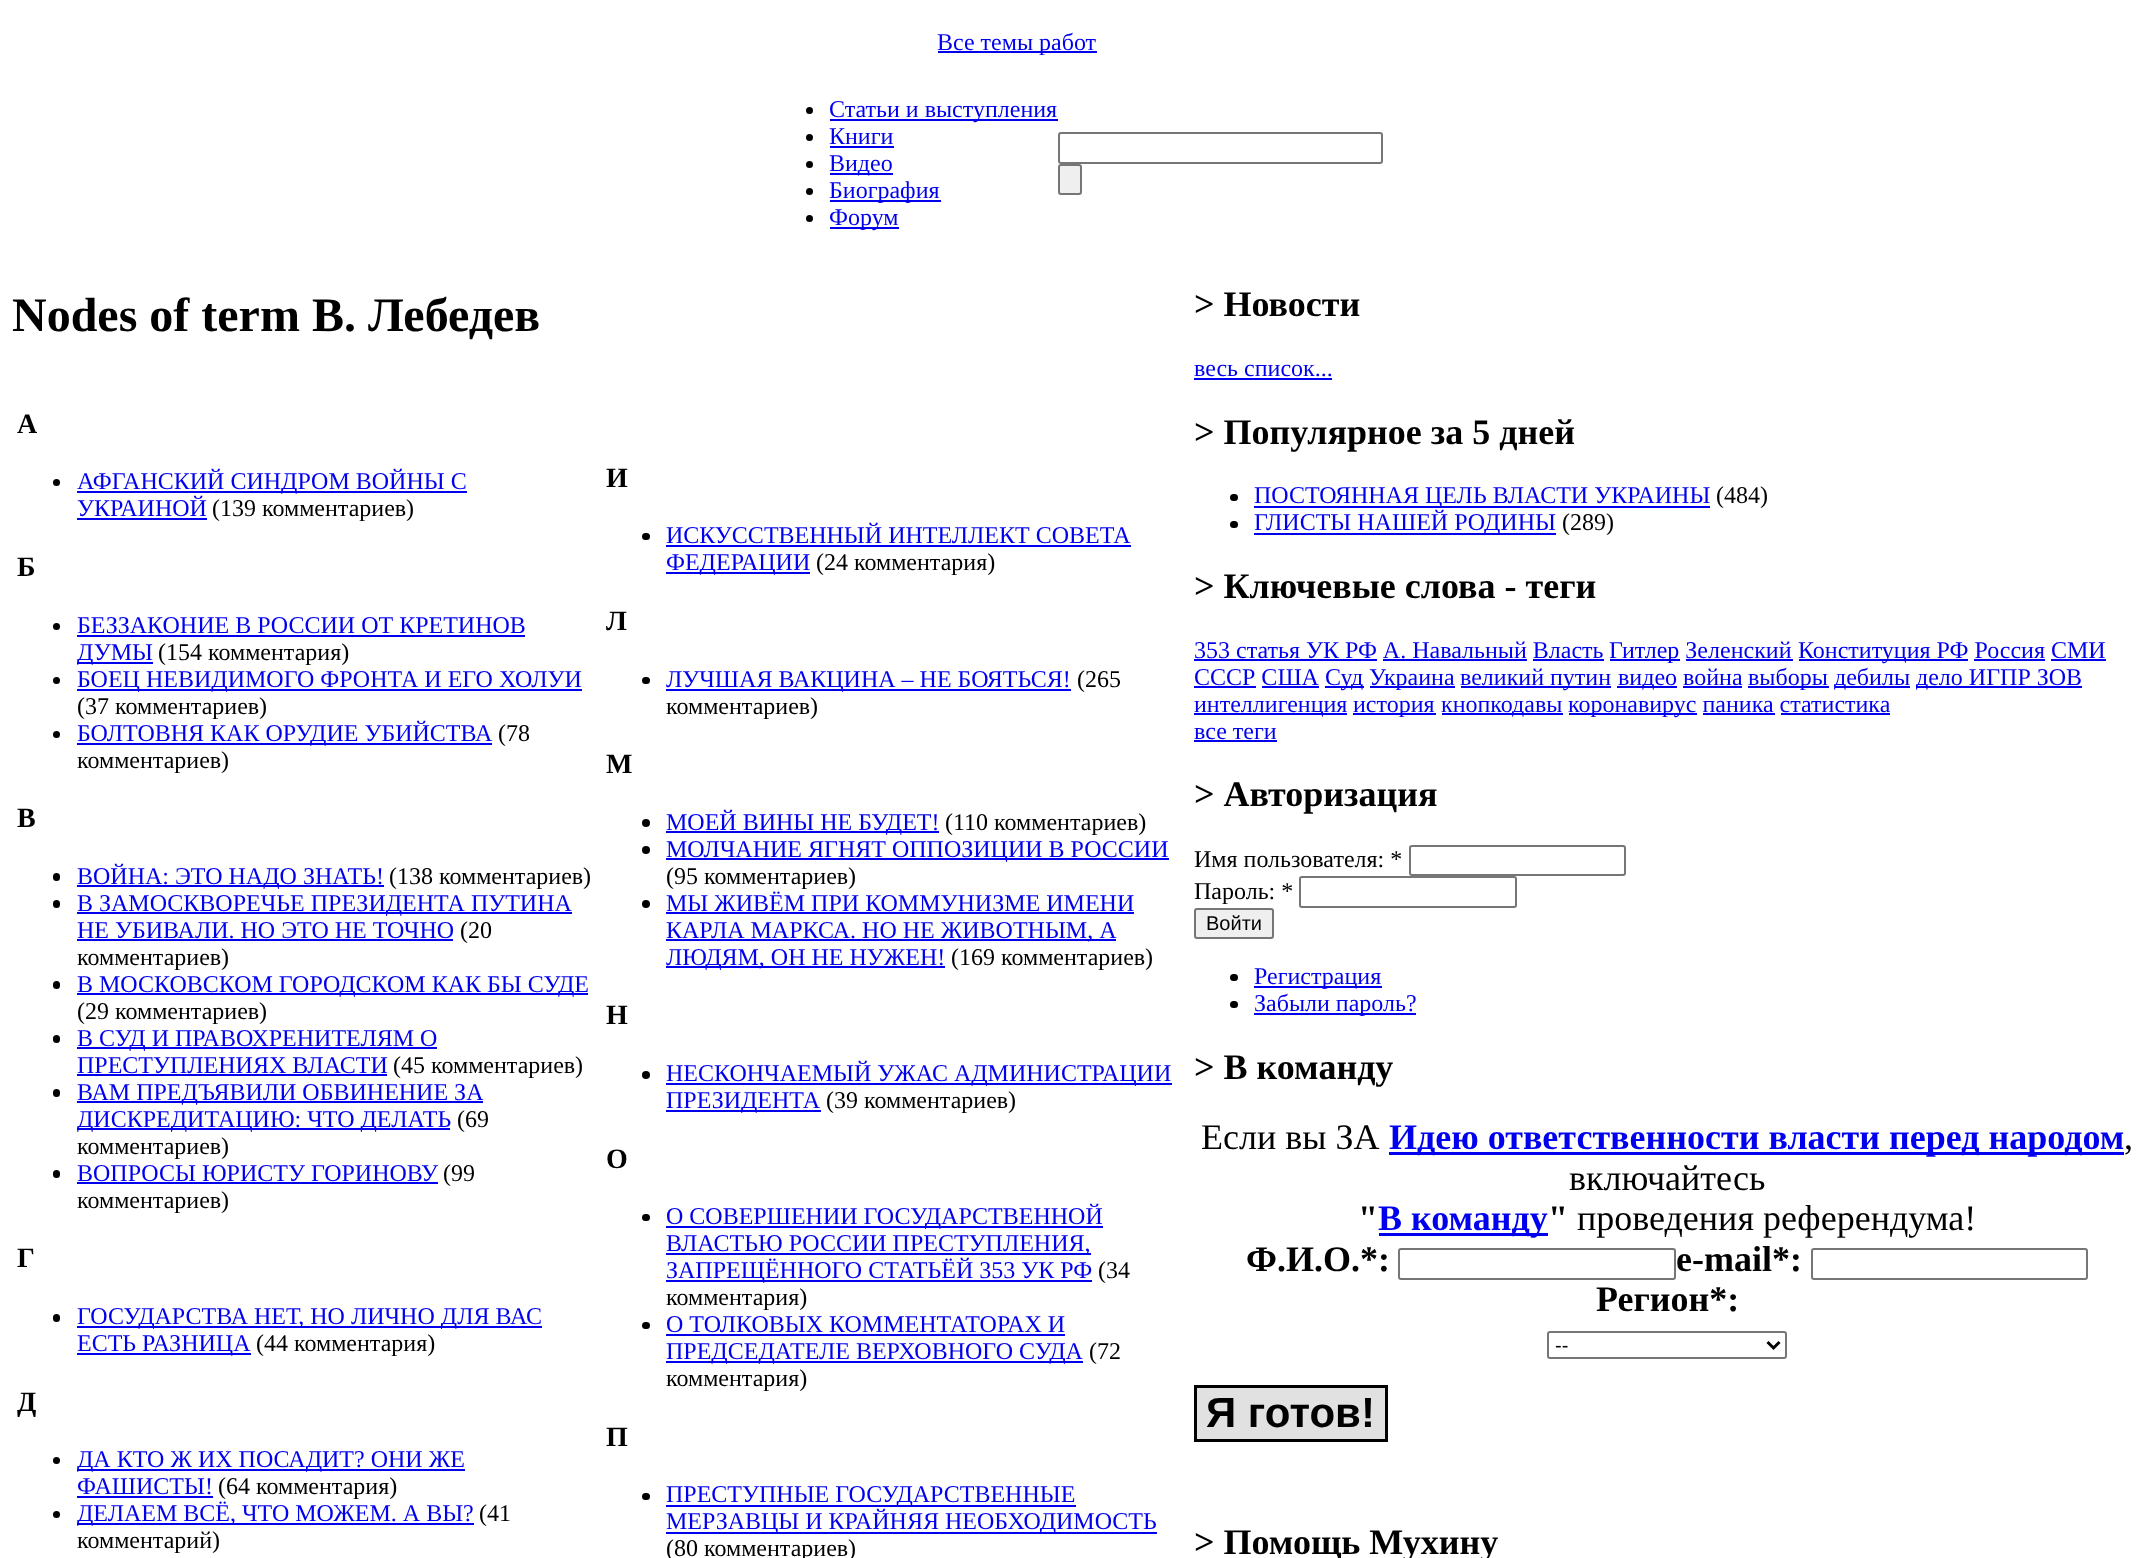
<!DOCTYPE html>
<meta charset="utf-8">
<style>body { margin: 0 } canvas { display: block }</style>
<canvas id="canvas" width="2152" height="1558"></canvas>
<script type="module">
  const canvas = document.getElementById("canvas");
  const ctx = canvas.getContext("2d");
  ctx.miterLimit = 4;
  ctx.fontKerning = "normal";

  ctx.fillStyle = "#ffffff";
  ctx.fillRect(0, 0, 2152, 1558);
  ctx.fillStyle = "#0000ee";
  ctx.fillRect(938, 51, 159, 2);
  ctx.font = "24px Liberation Serif";
  ctx.fillText("Все темы работ", 937, 50);
  ctx.fillStyle = "#000000";
  ctx.beginPath();
  ctx.arc(809.5, 110.5, 3.5, 0, Math.PI * 2);
  ctx.fill();
  ctx.fillStyle = "#0000ee";
  ctx.fillRect(830, 119, 228, 2);
  ctx.fillText("Статьи и выступления", 829, 117);
  ctx.fillStyle = "#000000";
  ctx.beginPath();
  ctx.arc(809.5, 137.5, 3.5, 0, Math.PI * 2);
  ctx.fill();
  ctx.fillStyle = "#0000ee";
  ctx.fillText("Книги", 829, 144);
  ctx.fillRect(830, 146, 64, 2);
  ctx.fillStyle = "#000000";
  ctx.beginPath();
  ctx.arc(809.5, 164.5, 3.5, 0, Math.PI * 2);
  ctx.fill();
  ctx.fillStyle = "#0000ee";
  ctx.fillRect(830, 173, 63, 2);
  ctx.fillText("Видео", 829, 171);
  ctx.fillStyle = "#000000";
  ctx.beginPath();
  ctx.arc(809.5, 191.5, 3.5, 0, Math.PI * 2);
  ctx.fill();
  ctx.fillStyle = "#0000ee";
  ctx.fillRect(830, 200, 111, 2);
  ctx.fillText("Биография", 829, 198);
  ctx.fillStyle = "#000000";
  ctx.beginPath();
  ctx.arc(809.5, 218.5, 3.5, 0, Math.PI * 2);
  ctx.fill();
  ctx.fillStyle = "#0000ee";
  ctx.fillRect(830, 227, 69, 2);
  ctx.fillText("Форум", 829, 225);
  ctx.beginPath();
  ctx.roundRect(1059, 133, 323, 30, 2);
  ctx.strokeStyle = "#767676";
  ctx.lineWidth = 2;
  ctx.stroke();
  ctx.fillStyle = "#efefef";
  ctx.beginPath();
  ctx.roundRect(1059, 165, 22, 29, 2);
  ctx.fill();
  ctx.stroke();
  ctx.font = "bold 48px Liberation Serif";
  ctx.fillStyle = "#000000";
  ctx.fillText("Nodes of term В. Лебедев", 12, 331);
  ctx.font = "bold 28px Liberation Serif";
  ctx.fillText("А", 17, 433);
  ctx.beginPath();
  ctx.arc(56.5, 482.5, 3.5, 0, Math.PI * 2);
  ctx.fill();
  ctx.fillStyle = "#0000ee";
  ctx.fillRect(77, 491, 390, 2);
  ctx.font = "24px Liberation Serif";
  ctx.fillText("АФГАНСКИЙ СИНДРОМ ВОЙНЫ С", 77, 489);
  ctx.fillText("УКРАИНОЙ", 77, 516);
  ctx.fillRect(77, 518, 130, 2);
  ctx.fillStyle = "#000000";
  ctx.fillText("(139 комментариев)", 212, 516);
  ctx.font = "bold 28px Liberation Serif";
  ctx.fillText("Б", 17, 576);
  ctx.beginPath();
  ctx.arc(56.5, 626.5, 3.5, 0, Math.PI * 2);
  ctx.fill();
  ctx.font = "24px Liberation Serif";
  ctx.fillStyle = "#0000ee";
  ctx.fillText("БЕЗЗАКОНИЕ В РОССИИ ОТ КРЕТИНОВ", 77, 633);
  ctx.fillRect(77, 635, 448, 2);
  ctx.fillRect(77, 662, 76, 2);
  ctx.fillText("ДУМЫ", 77, 660);
  ctx.fillStyle = "#000000";
  ctx.fillText("(154 комментария)", 158, 660);
  ctx.beginPath();
  ctx.arc(56.5, 680.5, 3.5, 0, Math.PI * 2);
  ctx.fill();
  ctx.fillStyle = "#0000ee";
  ctx.fillRect(77, 689, 505, 2);
  ctx.fillText("БОЕЦ НЕВИДИМОГО ФРОНТА И ЕГО ХОЛУИ", 77, 687);
  ctx.fillStyle = "#000000";
  ctx.fillText("(37 комментариев)", 77, 714);
  ctx.beginPath();
  ctx.arc(56.5, 734.5, 3.5, 0, Math.PI * 2);
  ctx.fill();
  ctx.fillStyle = "#0000ee";
  ctx.fillRect(77, 743, 415, 2);
  ctx.fillText("БОЛТОВНЯ КАК ОРУДИЕ УБИЙСТВА", 77, 741);
  ctx.fillStyle = "#000000";
  ctx.fillText("(78", 498, 741);
  ctx.fillText("комментариев)", 77, 768);
  ctx.font = "bold 28px Liberation Serif";
  ctx.fillText("В", 17, 827);
  ctx.beginPath();
  ctx.roundRect(53, 873, 7, 8, 3.5);
  ctx.fill();
  ctx.fillStyle = "#0000ee";
  ctx.fillRect(77, 885, 307, 2);
  ctx.font = "24px Liberation Serif";
  ctx.fillText("ВОЙНА: ЭТО НАДО ЗНАТЬ!", 77, 884);
  ctx.fillStyle = "#000000";
  ctx.fillText("(138 комментариев)", 389, 884);
  ctx.beginPath();
  ctx.roundRect(53, 900, 7, 8, 3.5);
  ctx.fill();
  ctx.fillStyle = "#0000ee";
  ctx.fillRect(77, 912, 495, 2);
  ctx.fillText("В ЗАМОСКВОРЕЧЬЕ ПРЕЗИДЕНТА ПУТИНА", 77, 911);
  ctx.fillText("НЕ УБИВАЛИ. НО ЭТО НЕ ТОЧНО", 77, 938);
  ctx.fillRect(77, 939, 376, 2);
  ctx.fillStyle = "#000000";
  ctx.fillText("(20", 460, 938);
  ctx.fillText("комментариев)", 77, 965);
  ctx.beginPath();
  ctx.roundRect(53, 981, 7, 8, 3.5);
  ctx.fill();
  ctx.fillStyle = "#0000ee";
  ctx.fillRect(77, 993, 511, 2);
  ctx.fillText("В МОСКОВСКОМ ГОРОДСКОМ КАК БЫ СУДЕ", 77, 992);
  ctx.fillStyle = "#000000";
  ctx.fillText("(29 комментариев)", 77, 1019);
  ctx.beginPath();
  ctx.roundRect(53, 1035, 7, 8, 3.5);
  ctx.fill();
  ctx.fillStyle = "#0000ee";
  ctx.fillRect(77, 1047, 360, 2);
  ctx.fillText("В СУД И ПРАВОХРЕНИТЕЛЯМ О", 77, 1046);
  ctx.fillText("ПРЕСТУПЛЕНИЯХ ВЛАСТИ", 77, 1073);
  ctx.fillRect(77, 1074, 310, 2);
  ctx.fillStyle = "#000000";
  ctx.fillText("(45 комментариев)", 393, 1073);
  ctx.beginPath();
  ctx.roundRect(53, 1089, 7, 8, 3.5);
  ctx.fill();
  ctx.fillStyle = "#0000ee";
  ctx.fillRect(77, 1101, 406, 2);
  ctx.fillText("ВАМ ПРЕДЪЯВИЛИ ОБВИНЕНИЕ ЗА", 77, 1100);
  ctx.fillRect(77, 1128, 373, 2);
  ctx.fillText("ДИСКРЕДИТАЦИЮ: ЧТО ДЕЛАТЬ", 77, 1127);
  ctx.fillStyle = "#000000";
  ctx.fillText("(69", 457, 1127);
  ctx.fillText("комментариев)", 77, 1154);
  ctx.beginPath();
  ctx.roundRect(53, 1170, 7, 8, 3.5);
  ctx.fill();
  ctx.fillStyle = "#0000ee";
  ctx.fillText("ВОПРОСЫ ЮРИСТУ ГОРИНОВУ", 77, 1181);
  ctx.fillRect(77, 1182, 361, 2);
  ctx.fillStyle = "#000000";
  ctx.fillText("(99", 443, 1181);
  ctx.fillText("комментариев)", 77, 1208);
  ctx.font = "bold 28px Liberation Serif";
  ctx.fillText("Г", 17, 1267);
  ctx.beginPath();
  ctx.roundRect(53, 1314, 7, 8, 3.5);
  ctx.fill();
  ctx.fillStyle = "#0000ee";
  ctx.fillRect(77, 1326, 465, 2);
  ctx.font = "24px Liberation Serif";
  ctx.fillText("ГОСУДАРСТВА НЕТ, НО ЛИЧНО ДЛЯ ВАС", 77, 1324);
  ctx.fillRect(77, 1353, 174, 2);
  ctx.fillText("ЕСТЬ РАЗНИЦА", 77, 1351);
  ctx.fillStyle = "#000000";
  ctx.fillText("(44 комментария)", 256, 1351);
  ctx.font = "bold 28px Liberation Serif";
  ctx.fillText("Д", 17, 1411);
  ctx.beginPath();
  ctx.arc(56.5, 1460.5, 3.5, 0, Math.PI * 2);
  ctx.fill();
  ctx.fillStyle = "#0000ee";
  ctx.fillRect(77, 1469, 388, 2);
  ctx.font = "24px Liberation Serif";
  ctx.fillText("ДА КТО Ж ИХ ПОСАДИТ? ОНИ ЖЕ", 77, 1467);
  ctx.fillText("ФАШИСТЫ!", 77, 1494);
  ctx.fillRect(77, 1496, 136, 2);
  ctx.fillStyle = "#000000";
  ctx.fillText("(64 комментария)", 218, 1494);
  ctx.beginPath();
  ctx.arc(56.5, 1514.5, 3.5, 0, Math.PI * 2);
  ctx.fill();
  ctx.fillStyle = "#0000ee";
  ctx.fillRect(77, 1523, 397, 2);
  ctx.fillText("ДЕЛАЕМ ВСЁ, ЧТО МОЖЕМ. А ВЫ?", 77, 1521);
  ctx.fillStyle = "#000000";
  ctx.fillText("(41", 479, 1521);
  ctx.fillText("комментарий)", 77, 1548);
  ctx.font = "bold 28px Liberation Serif";
  ctx.fillText("И", 606, 487);
  ctx.beginPath();
  ctx.roundRect(642, 533, 8, 7, 3.5);
  ctx.fill();
  ctx.font = "24px Liberation Serif";
  ctx.fillStyle = "#0000ee";
  ctx.fillText("ИСКУССТВЕННЫЙ ИНТЕЛЛЕКТ СОВЕТА", 666, 543);
  ctx.fillRect(666, 545, 465, 2);
  ctx.fillRect(666, 572, 144, 2);
  ctx.fillText("ФЕДЕРАЦИИ", 666, 570);
  ctx.fillStyle = "#000000";
  ctx.fillText("(24 комментария)", 816, 570);
  ctx.font = "bold 28px Liberation Serif";
  ctx.fillText("Л", 606, 630);
  ctx.beginPath();
  ctx.roundRect(642, 677, 8, 7, 3.5);
  ctx.fill();
  ctx.fillStyle = "#0000ee";
  ctx.fillRect(666, 689, 405, 2);
  ctx.font = "24px Liberation Serif";
  ctx.fillText("ЛУЧШАЯ ВАКЦИНА – НЕ БОЯТЬСЯ!", 666, 687);
  ctx.fillStyle = "#000000";
  ctx.fillText("(265", 1077, 687);
  ctx.fillText("комментариев)", 666, 714);
  ctx.font = "bold 28px Liberation Serif";
  ctx.fillText("М", 606, 773);
  ctx.beginPath();
  ctx.arc(646, 823, 4, 0, Math.PI * 2);
  ctx.fill();
  ctx.fillStyle = "#0000ee";
  ctx.fillRect(666, 831, 273, 2);
  ctx.font = "24px Liberation Serif";
  ctx.fillText("МОЕЙ ВИНЫ НЕ БУДЕТ!", 666, 830);
  ctx.fillStyle = "#000000";
  ctx.fillText("(110 комментариев)", 945, 830);
  ctx.beginPath();
  ctx.arc(646, 850, 4, 0, Math.PI * 2);
  ctx.fill();
  ctx.fillStyle = "#0000ee";
  ctx.fillRect(666, 858, 503, 2);
  ctx.fillText("МОЛЧАНИЕ ЯГНЯТ ОППОЗИЦИИ В РОССИИ", 666, 857);
  ctx.fillStyle = "#000000";
  ctx.fillText("(95 комментариев)", 666, 884);
  ctx.beginPath();
  ctx.arc(646, 904, 4, 0, Math.PI * 2);
  ctx.fill();
  ctx.fillStyle = "#0000ee";
  ctx.fillText("МЫ ЖИВЁМ ПРИ КОММУНИЗМЕ ИМЕНИ", 666, 911);
  ctx.fillRect(666, 912, 468, 2);
  ctx.fillRect(666, 939, 450, 2);
  ctx.fillText("КАРЛА МАРКСА. НО НЕ ЖИВОТНЫМ, А", 666, 938);
  ctx.fillRect(666, 966, 279, 2);
  ctx.fillText("ЛЮДЯМ, ОН НЕ НУЖЕН!", 666, 965);
  ctx.fillStyle = "#000000";
  ctx.fillText("(169 комментариев)", 951, 965);
  ctx.font = "bold 28px Liberation Serif";
  ctx.fillText("Н", 606, 1024);
  ctx.beginPath();
  ctx.arc(646, 1075, 4, 0, Math.PI * 2);
  ctx.fill();
  ctx.fillStyle = "#0000ee";
  ctx.fillRect(666, 1083, 506, 2);
  ctx.font = "24px Liberation Serif";
  ctx.fillText("НЕСКОНЧАЕМЫЙ УЖАС АДМИНИСТРАЦИИ", 666, 1081);
  ctx.fillRect(666, 1110, 155, 2);
  ctx.fillText("ПРЕЗИДЕНТА", 666, 1108);
  ctx.fillStyle = "#000000";
  ctx.fillText("(39 комментариев)", 826, 1108);
  ctx.font = "bold 28px Liberation Serif";
  ctx.fillText("О", 606, 1168);
  ctx.beginPath();
  ctx.roundRect(642, 1214, 8, 7, 3.5);
  ctx.fill();
  ctx.fillStyle = "#0000ee";
  ctx.fillRect(666, 1226, 437, 2);
  ctx.font = "24px Liberation Serif";
  ctx.fillText("О СОВЕРШЕНИИ ГОСУДАРСТВЕННОЙ", 666, 1224);
  ctx.fillRect(666, 1253, 425, 2);
  ctx.fillText("ВЛАСТЬЮ РОССИИ ПРЕСТУПЛЕНИЯ,", 666, 1251);
  ctx.fillRect(666, 1280, 426, 2);
  ctx.fillText("ЗАПРЕЩЁННОГО СТАТЬЁЙ 353 УК РФ", 666, 1278);
  ctx.fillStyle = "#000000";
  ctx.fillText("(34", 1098, 1278);
  ctx.fillText("комментария)", 666, 1305);
  ctx.beginPath();
  ctx.roundRect(642, 1322, 8, 7, 3.5);
  ctx.fill();
  ctx.fillStyle = "#0000ee";
  ctx.fillText("О ТОЛКОВЫХ КОММЕНТАТОРАХ И", 666, 1332);
  ctx.fillRect(666, 1334, 399, 2);
  ctx.fillRect(666, 1361, 417, 2);
  ctx.fillText("ПРЕДСЕДАТЕЛЕ ВЕРХОВНОГО СУДА", 666, 1359);
  ctx.fillStyle = "#000000";
  ctx.fillText("(72", 1089, 1359);
  ctx.fillText("комментария)", 666, 1386);
  ctx.font = "bold 28px Liberation Serif";
  ctx.fillText("П", 606, 1446);
  ctx.beginPath();
  ctx.roundRect(642, 1493, 8, 7, 3.5);
  ctx.fill();
  ctx.fillStyle = "#0000ee";
  ctx.fillRect(666, 1505, 410, 2);
  ctx.font = "24px Liberation Serif";
  ctx.fillText("ПРЕСТУПНЫЕ ГОСУДАРСТВЕННЫЕ", 666, 1502);
  ctx.fillRect(666, 1532, 491, 2);
  ctx.fillText("МЕРЗАВЦЫ И КРАЙНЯЯ НЕОБХОДИМОСТЬ", 666, 1529);
  ctx.fillStyle = "#000000";
  ctx.fillText("(80 комментариев)", 666, 1556);
  ctx.font = "bold 36px Liberation Serif";
  ctx.fillText("> Новости", 1194, 316);
  ctx.font = "24px Liberation Serif";
  ctx.fillStyle = "#0000ee";
  ctx.fillText("весь список...", 1194, 376);
  ctx.fillRect(1194, 378, 138, 2);
  ctx.font = "bold 36px Liberation Serif";
  ctx.fillStyle = "#000000";
  ctx.fillText("> Популярное за 5 дней", 1194, 444);
  ctx.beginPath();
  ctx.roundRect(1230, 494, 8, 7, 3.5);
  ctx.fill();
  ctx.fillStyle = "#0000ee";
  ctx.fillRect(1254, 506, 456, 2);
  ctx.font = "24px Liberation Serif";
  ctx.fillText("ПОСТОЯННАЯ ЦЕЛЬ ВЛАСТИ УКРАИНЫ", 1254, 503);
  ctx.fillStyle = "#000000";
  ctx.fillText("(484)", 1716, 503);
  ctx.beginPath();
  ctx.roundRect(1230, 521, 8, 7, 3.5);
  ctx.fill();
  ctx.fillStyle = "#0000ee";
  ctx.fillRect(1254, 533, 302, 2);
  ctx.fillText("ГЛИСТЫ НАШЕЙ РОДИНЫ", 1254, 530);
  ctx.fillStyle = "#000000";
  ctx.fillText("(289)", 1562, 530);
  ctx.font = "bold 36px Liberation Serif";
  ctx.fillText("> Ключевые слова - теги", 1194, 598);
  ctx.font = "24px Liberation Serif";
  ctx.fillStyle = "#0000ee";
  ctx.fillText("353 статья УК РФ А. Навальный Власть", 1194, 658);
  ctx.fillRect(1194, 659, 183, 2);
  ctx.fillRect(1610, 659, 70, 2);
  ctx.fillText("Гитлер Зеленский", 1609, 658);
  ctx.fillRect(1799, 659, 169, 2);
  ctx.fillText("Конституция РФ Россия СМИ", 1798, 658);
  ctx.fillRect(1383, 659, 144, 2);
  ctx.fillRect(1533, 659, 71, 2);
  ctx.fillRect(1686, 659, 107, 2);
  ctx.fillRect(1974, 659, 71, 2);
  ctx.fillRect(2051, 659, 55, 2);
  ctx.fillText("СССР США", 1194, 685);
  ctx.fillRect(1194, 686, 62, 2);
  ctx.fillRect(1325, 686, 39, 2);
  ctx.fillText("Суд", 1325, 685);
  ctx.fillRect(1370, 686, 85, 2);
  ctx.fillText("Украина", 1369, 685);
  ctx.fillRect(1461, 686, 150, 2);
  ctx.fillText("великий путин", 1460, 685);
  ctx.fillRect(1617, 686, 60, 2);
  ctx.fillText("видео война", 1618, 685);
  ctx.fillRect(1748, 686, 81, 2);
  ctx.fillText("выборы", 1748, 685);
  ctx.fillRect(1835, 686, 75, 2);
  ctx.fillText("дебилы", 1834, 685);
  ctx.fillRect(1916, 686, 166, 2);
  ctx.fillText("дело ИГПР ЗОВ", 1916, 685);
  ctx.fillRect(1262, 686, 57, 2);
  ctx.fillRect(1683, 686, 59, 2);
  ctx.fillRect(1194, 713, 153, 2);
  ctx.fillText("интеллигенция", 1194, 712);
  ctx.fillRect(1353, 713, 83, 2);
  ctx.fillText("история", 1353, 712);
  ctx.fillRect(1442, 713, 121, 2);
  ctx.fillText("кнопкодавы", 1441, 712);
  ctx.fillRect(1569, 713, 128, 2);
  ctx.fillText("коронавирус паника статистика", 1568, 712);
  ctx.fillRect(1703, 713, 72, 2);
  ctx.fillRect(1781, 713, 109, 2);
  ctx.fillText("все теги", 1194, 739);
  ctx.fillRect(1194, 740, 83, 2);
  ctx.font = "bold 36px Liberation Serif";
  ctx.fillStyle = "#000000";
  ctx.fillText("> Авторизация", 1194, 806);
  ctx.font = "24px Liberation Serif";
  ctx.fillText("Имя пользователя: *", 1194, 867);
  ctx.beginPath();
  ctx.roundRect(1410, 846, 215, 29, 2);
  ctx.stroke();
  ctx.fillText("Пароль: *", 1194, 899);
  ctx.beginPath();
  ctx.roundRect(1300, 877, 216, 30, 2);
  ctx.stroke();
  ctx.fillStyle = "#efefef";
  ctx.beginPath();
  ctx.roundRect(1195, 909, 78, 29, 2);
  ctx.fill();
  ctx.stroke();
  ctx.font = "20px Liberation Sans";
  ctx.fillStyle = "#000000";
  ctx.fillText("Войти", 1206, 930);
  ctx.beginPath();
  ctx.roundRect(1230, 974, 8, 7, 3.5);
  ctx.fill();
  ctx.fillStyle = "#0000ee";
  ctx.fillRect(1254, 986, 128, 2);
  ctx.font = "24px Liberation Serif";
  ctx.fillText("Регистрация", 1254, 984);
  ctx.fillStyle = "#000000";
  ctx.beginPath();
  ctx.roundRect(1230, 1001, 8, 7, 3.5);
  ctx.fill();
  ctx.fillStyle = "#0000ee";
  ctx.fillRect(1254, 1013, 162, 2);
  ctx.fillText("Забыли пароль?", 1254, 1011);
  ctx.font = "bold 36px Liberation Serif";
  ctx.fillStyle = "#000000";
  ctx.fillText("> В команду", 1194, 1079);
  ctx.font = "36px Liberation Serif";
  ctx.fillText("Если вы ЗА", 1201, 1149);
  ctx.fillStyle = "#0000ee";
  ctx.fillRect(1389, 1152, 735, 3);
  ctx.font = "bold 36px Liberation Serif";
  ctx.fillText("Идею ответственности власти перед народом", 1389, 1149);
  ctx.font = "36px Liberation Serif";
  ctx.fillStyle = "#000000";
  ctx.fillText(",", 2124, 1149);
  ctx.fillText("включайтесь", 1569, 1190);
  ctx.font = "bold 36px Liberation Serif";
  ctx.fillText("\"", 1358, 1230);
  ctx.fillStyle = "#0000ee";
  ctx.fillRect(1379, 1233, 169, 3);
  ctx.fillText("В команду", 1378, 1230);
  ctx.fillStyle = "#000000";
  ctx.fillText("\"", 1548, 1230);
  ctx.font = "36px Liberation Serif";
  ctx.fillText("проведения референдума!", 1577, 1230);
  ctx.font = "bold 36px Liberation Serif";
  ctx.fillText("Ф.И.О.*:", 1246, 1271);
  ctx.beginPath();
  ctx.roundRect(1399, 1249, 276, 30, 2);
  ctx.stroke();
  ctx.fillText("e-mail*:", 1676, 1271);
  ctx.beginPath();
  ctx.roundRect(1812, 1249, 275, 30, 2);
  ctx.stroke();
  ctx.fillText("Регион*:", 1596, 1311);
  ctx.beginPath();
  ctx.roundRect(1548, 1332, 238, 26, 2);
  ctx.stroke();
  ctx.beginPath();
  ctx.moveTo(1767.5, 1342);
  ctx.lineTo(1773.5, 1348);
  ctx.lineTo(1779.5, 1342);
  ctx.strokeStyle = "#000000";
  ctx.lineWidth = 3;
  ctx.stroke();
  ctx.font = "20px Liberation Sans";
  ctx.fillText("--", 1555, 1352);
  ctx.fillStyle = "#e1e1e1";
  ctx.beginPath();
  ctx.rect(1195.5, 1386.5, 191, 54);
  ctx.fill();
  ctx.stroke();
  ctx.font = "bold 42px Liberation Sans";
  ctx.fillStyle = "#000000";
  ctx.fillText("Я готов!", 1206, 1427);
  ctx.font = "bold 36px Liberation Serif";
  ctx.fillText("> Помощь Мухину", 1194, 1554);
</script>
